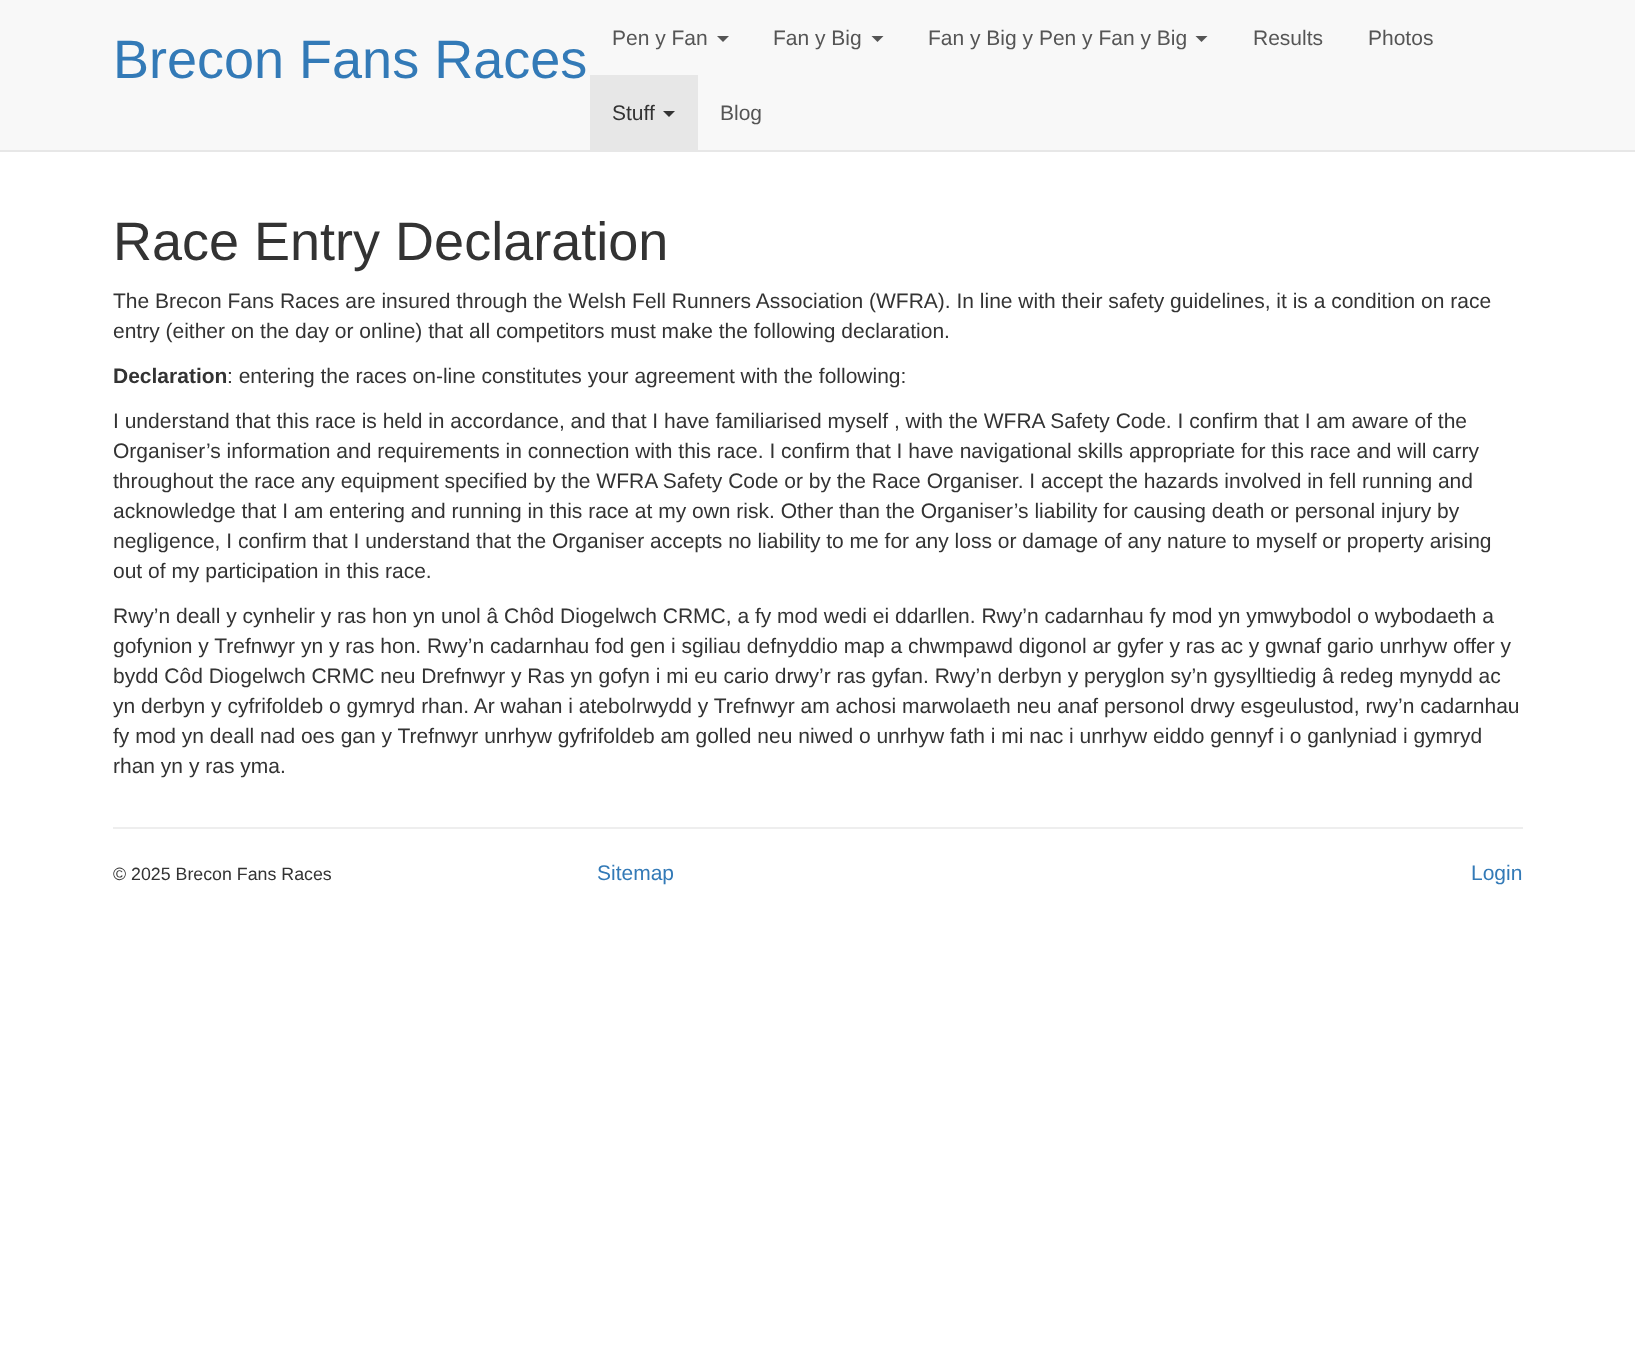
<!DOCTYPE html>
<meta charset="utf-8">
<style>body { margin: 0 } canvas { display: block }</style>
<canvas id="canvas" width="1635" height="1350"></canvas>
<script type="module">
  const canvas = document.getElementById("canvas");
  const ctx = canvas.getContext("2d");
  ctx.miterLimit = 4;
  ctx.fontKerning = "normal";

  ctx.fillStyle = "#ffffff";
  ctx.fillRect(0, 0, 1635, 1350);
  ctx.fillStyle = "#f8f8f8";
  ctx.fillRect(0, 0, 1635, 150);
  ctx.fillStyle = "#e7e7e7";
  ctx.fillRect(0, 150, 1635, 2);
  ctx.font = "54px Liberation Sans";
  ctx.fillStyle = "#337ab7";
  ctx.fillText("Brecon Fans Races", 113, 78);
  ctx.font = "21px Liberation Sans";
  ctx.fillStyle = "#555555";
  ctx.fillText("Pen y Fan", 612, 45);
  ctx.beginPath();
  ctx.moveTo(717, 36);
  ctx.lineTo(729, 36);
  ctx.lineTo(723, 42);
  ctx.closePath();
  ctx.fill();
  ctx.fillText("Fan y Big", 773, 45);
  ctx.beginPath();
  ctx.moveTo(871.5, 36);
  ctx.lineTo(883.5, 36);
  ctx.lineTo(877.5, 42);
  ctx.closePath();
  ctx.fill();
  ctx.fillText("Fan y Big y Pen y Fan y Big", 928, 45);
  ctx.beginPath();
  ctx.moveTo(1195.5, 36);
  ctx.lineTo(1207.5, 36);
  ctx.lineTo(1201.5, 42);
  ctx.closePath();
  ctx.fill();
  ctx.fillText("Results", 1253, 45);
  ctx.fillText("Photos", 1368, 45);
  ctx.fillStyle = "#e7e7e7";
  ctx.fillRect(590, 75, 108, 75);
  ctx.fillStyle = "#333333";
  ctx.fillText("Stuff", 612, 120);
  ctx.beginPath();
  ctx.moveTo(663, 111);
  ctx.lineTo(675, 111);
  ctx.lineTo(669, 117);
  ctx.closePath();
  ctx.fill();
  ctx.fillStyle = "#555555";
  ctx.fillText("Blog", 720, 120);
  ctx.font = "54px Liberation Sans";
  ctx.fillStyle = "#333333";
  ctx.fillText("Race Entry Declaration", 113, 260);
  ctx.font = "21px Liberation Sans";
  ctx.fillText("The Brecon Fans Races are insured through the Welsh Fell Runners Association (WFRA). In line with their safety guidelines, it is a condition on race", 113, 308);
  ctx.fillText("entry (either on the day or online) that all competitors must make the following declaration.", 113, 338);
  ctx.font = "bold 21px Liberation Sans";
  ctx.fillText("Declaration", 113, 383);
  ctx.font = "21px Liberation Sans";
  ctx.fillText(": entering the races on-line constitutes your agreement with the following:", 227, 383);
  ctx.fillText("I understand that this race is held in accordance, and that I have familiarised myself , with the WFRA Safety Code. I confirm that I am aware of the", 113, 428);
  ctx.fillText("Organiser’s information and requirements in connection with this race. I confirm that I have navigational skills appropriate for this race and will carry", 113, 458);
  ctx.fillText("throughout the race any equipment specified by the WFRA Safety Code or by the Race Organiser. I accept the hazards involved in fell running and", 113, 488);
  ctx.fillText("acknowledge that I am entering and running in this race at my own risk. Other than the Organiser’s liability for causing death or personal injury by", 113, 518);
  ctx.fillText("negligence, I confirm that I understand that the Organiser accepts no liability to me for any loss or damage of any nature to myself or property arising", 113, 548);
  ctx.fillText("out of my participation in this race.", 113, 578);
  ctx.fillText("Rwy’n deall y cynhelir y ras hon yn unol â Chôd Diogelwch CRMC, a fy mod wedi ei ddarllen. Rwy’n cadarnhau fy mod yn ymwybodol o wybodaeth a", 113, 623);
  ctx.fillText("gofynion y Trefnwyr yn y ras hon. Rwy’n cadarnhau fod gen i sgiliau defnyddio map a chwmpawd digonol ar gyfer y ras ac y gwnaf gario unrhyw offer y", 113, 653);
  ctx.fillText("bydd Côd Diogelwch CRMC neu Drefnwyr y Ras yn gofyn i mi eu cario drwy’r ras gyfan. Rwy’n derbyn y peryglon sy’n gysylltiedig â redeg mynydd ac", 113, 683);
  ctx.fillText("yn derbyn y cyfrifoldeb o gymryd rhan. Ar wahan i atebolrwydd y Trefnwyr am achosi marwolaeth neu anaf personol drwy esgeulustod, rwy’n cadarnhau", 113, 713);
  ctx.fillText("fy mod yn deall nad oes gan y Trefnwyr unrhyw gyfrifoldeb am golled neu niwed o unrhyw fath i mi nac i unrhyw eiddo gennyf i o ganlyniad i gymryd", 113, 743);
  ctx.fillText("rhan yn y ras yma.", 113, 773);
  ctx.fillStyle = "#eeeeee";
  ctx.fillRect(113, 827, 1410, 2);
  ctx.font = "17.8px Liberation Sans";
  ctx.fillStyle = "#333333";
  ctx.fillText("© 2025 Brecon Fans Races", 113, 880);
  ctx.font = "21px Liberation Sans";
  ctx.fillStyle = "#337ab7";
  ctx.fillText("Sitemap", 597, 880);
  ctx.fillText("Login", 1471, 880);
</script>
